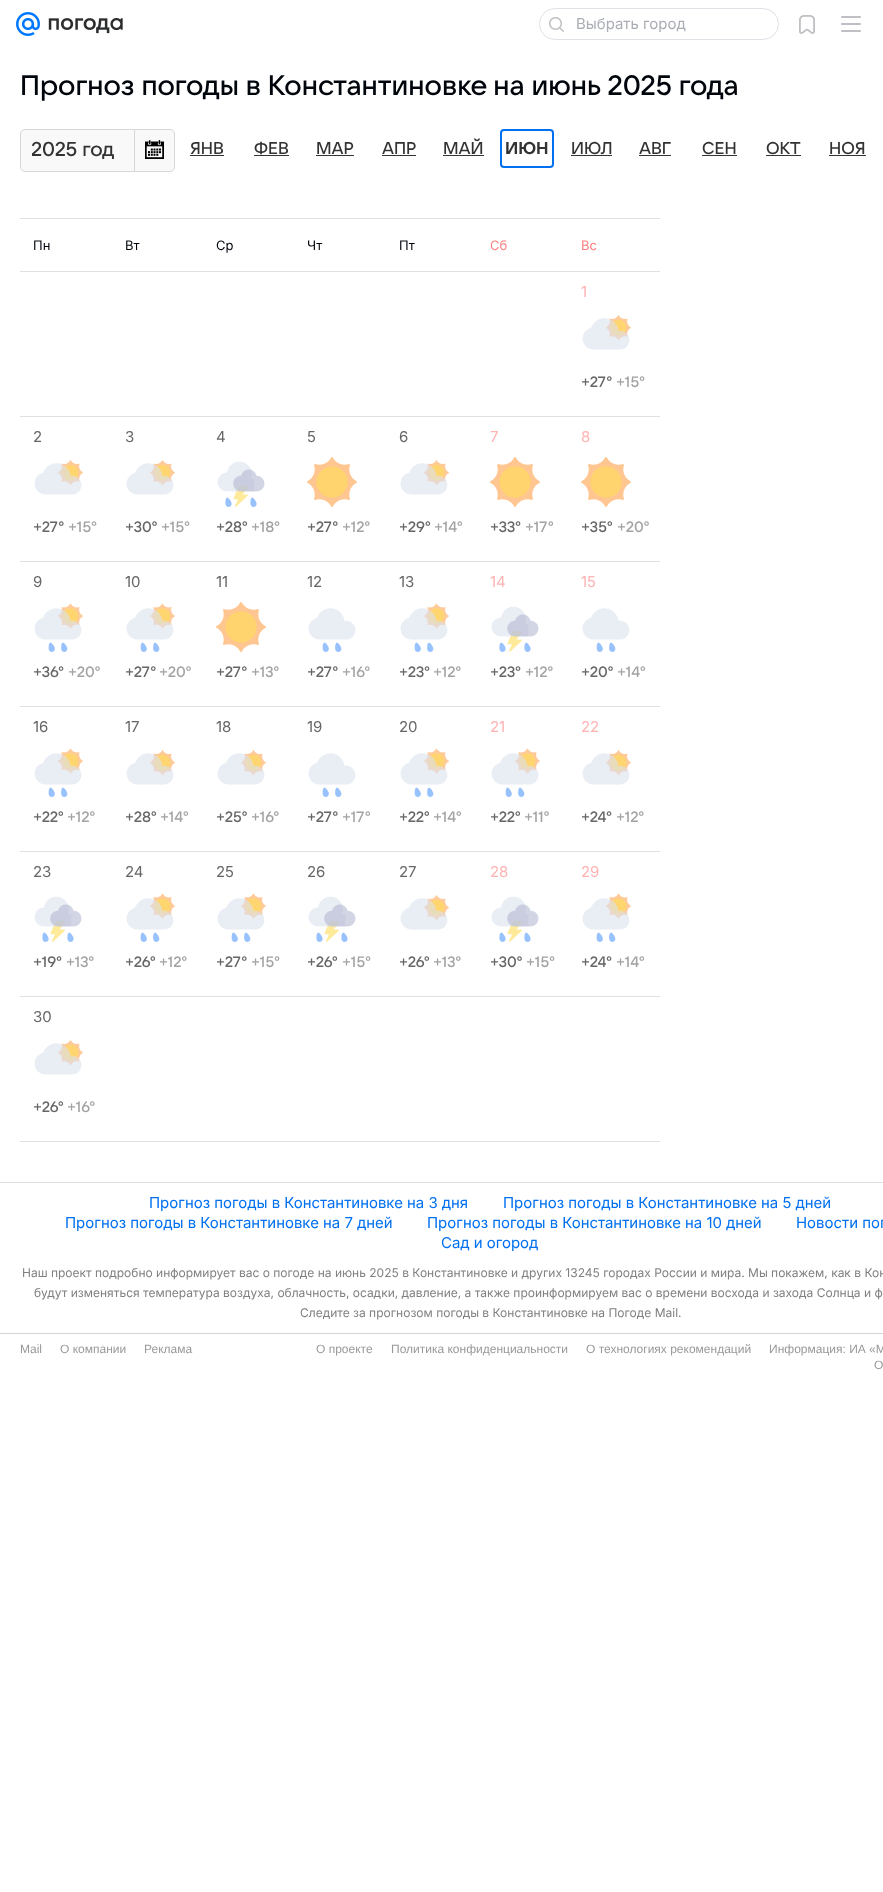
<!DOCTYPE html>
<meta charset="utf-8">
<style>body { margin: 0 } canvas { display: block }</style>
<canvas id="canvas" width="883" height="1892"></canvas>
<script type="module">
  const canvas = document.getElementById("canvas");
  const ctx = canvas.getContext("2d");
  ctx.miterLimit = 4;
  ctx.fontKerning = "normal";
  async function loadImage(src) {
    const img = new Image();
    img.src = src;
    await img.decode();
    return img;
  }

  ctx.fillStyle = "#ffffff";
  ctx.fillRect(0, 0, 883, 1892);
  ctx.drawImage(await loadImage("img1.png"), 16, 12, 24, 24);
  ctx.drawImage(await loadImage("img2.png"), 48, 18, 75, 16);
  ctx.beginPath();
  ctx.roundRect(539.5, 8.5, 239, 31, 15.5);
  ctx.strokeStyle = "#e0e2e8";
  ctx.stroke();
  ctx.drawImage(await loadImage("img3.png"), 549, 17, 15, 15);
  ctx.font = "15px Inter";
  ctx.fillStyle = "#aaadb3";
  ctx.fillText("Выбрать город", 576, 29);
  ctx.drawImage(await loadImage("img4.png"), 799, 15, 16, 19);
  ctx.drawImage(await loadImage("img5.png"), 841, 16, 20, 16);
  ctx.font = "500 28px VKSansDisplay";
  ctx.fillStyle = "#00050c";
  ctx.fillText("Прогноз погоды в Константиновке на июнь 2025 года", 20, 95);
  ctx.fillStyle = "#f9f9f9";
  ctx.beginPath();
  ctx.roundRect(20.5, 129.5, 154, 42, 4.5);
  ctx.fill();
  ctx.strokeStyle = "#d7d7d7";
  ctx.stroke();
  ctx.font = "500 20px VKSansDisplay";
  ctx.fillStyle = "#333333";
  ctx.fillText("2025 год", 31, 156);
  ctx.fillStyle = "#d7d7d7";
  ctx.fillRect(134, 130, 1, 41);
  ctx.drawImage(await loadImage("img6.png"), 145, 140, 19, 19);
  ctx.font = "500 17px VKSansDisplay";
  ctx.fillStyle = "#333333";
  ctx.fillText("ЯНВ", 190, 154);
  ctx.fillRect(190, 155, 34, 1);
  ctx.fillText("ФЕВ", 254, 154);
  ctx.fillRect(254, 155, 35, 1);
  ctx.fillText("МАР", 316, 154);
  ctx.fillRect(316, 155, 38, 1);
  ctx.fillText("АПР", 382, 154);
  ctx.fillRect(382, 155, 34, 1);
  ctx.fillText("МАЙ", 443, 154);
  ctx.fillRect(443, 155, 41, 1);
  ctx.beginPath();
  ctx.roundRect(501, 130, 52, 37, 3);
  ctx.strokeStyle = "#0070f0";
  ctx.lineWidth = 2;
  ctx.stroke();
  ctx.font = "bold 17px VKSansDisplay";
  ctx.fillText("ИЮН", 505, 154);
  ctx.font = "500 17px VKSansDisplay";
  ctx.fillText("ИЮЛ", 571, 154);
  ctx.fillRect(571, 155, 41, 1);
  ctx.fillText("АВГ", 639, 154);
  ctx.fillRect(639, 155, 32, 1);
  ctx.fillText("СЕН", 702, 154);
  ctx.fillRect(702, 155, 35, 1);
  ctx.fillText("ОКТ", 766, 154);
  ctx.fillRect(766, 155, 35, 1);
  ctx.fillText("НОЯ", 829, 154);
  ctx.fillRect(829, 155, 37, 1);
  ctx.fillStyle = "#e1e0e0";
  ctx.fillRect(20, 218, 640, 1);
  ctx.fillRect(20, 271, 640, 1);
  ctx.font = "13px 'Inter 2'";
  ctx.fillStyle = "#00050c";
  ctx.fillText("Пн", 33, 250);
  ctx.fillText("Вт", 125, 250);
  ctx.fillText("Ср", 216, 250);
  ctx.fillText("Чт", 307, 250);
  ctx.fillText("Пт", 399, 250);
  ctx.fillStyle = "#ff8080";
  ctx.fillText("Сб", 490, 250);
  ctx.fillText("Вс", 581, 250);
  ctx.fillStyle = "#e1e0e0";
  ctx.fillRect(20, 416, 640, 1);
  ctx.font = "15px Inter";
  ctx.fillStyle = "#ffb3b3";
  ctx.fillText("1", 581, 297);
  ctx.drawImage(await loadImage("img7.png"), 582, 315, 49, 35);
  ctx.font = "500 15px VKSansDisplay";
  ctx.fillStyle = "#666666";
  ctx.fillText("+27°", 581, 387);
  ctx.fillStyle = "#a3a3a3";
  ctx.fillText("+15°", 616, 387);
  ctx.fillStyle = "#e1e0e0";
  ctx.fillRect(20, 561, 640, 1);
  ctx.font = "15px Inter";
  ctx.fillStyle = "#666666";
  ctx.fillText("2", 33, 442);
  ctx.drawImage(await loadImage("img7.png"), 34, 460, 49, 35);
  ctx.font = "500 15px VKSansDisplay";
  ctx.fillText("+27°", 33, 532);
  ctx.fillStyle = "#a3a3a3";
  ctx.fillText("+15°", 68, 532);
  ctx.font = "15px Inter";
  ctx.fillStyle = "#666666";
  ctx.fillText("3", 125, 442);
  ctx.drawImage(await loadImage("img7.png"), 126, 460, 49, 35);
  ctx.font = "500 15px VKSansDisplay";
  ctx.fillText("+30°", 125, 532);
  ctx.fillStyle = "#a3a3a3";
  ctx.fillText("+15°", 161, 532);
  ctx.font = "15px Inter";
  ctx.fillStyle = "#666666";
  ctx.fillText("4", 216, 442);
  ctx.drawImage(await loadImage("img8.png"), 217, 461, 48, 46);
  ctx.font = "500 15px VKSansDisplay";
  ctx.fillText("+28°", 216, 532);
  ctx.fillStyle = "#a3a3a3";
  ctx.fillText("+18°", 251, 532);
  ctx.font = "15px Inter";
  ctx.fillStyle = "#666666";
  ctx.fillText("5", 307, 442);
  ctx.drawImage(await loadImage("img9.png"), 307, 457, 50, 50);
  ctx.font = "500 15px VKSansDisplay";
  ctx.fillText("+27°", 307, 532);
  ctx.fillStyle = "#a3a3a3";
  ctx.fillText("+12°", 342, 532);
  ctx.font = "15px Inter";
  ctx.fillStyle = "#666666";
  ctx.fillText("6", 399, 442);
  ctx.drawImage(await loadImage("img7.png"), 400, 460, 49, 35);
  ctx.font = "500 15px VKSansDisplay";
  ctx.fillText("+29°", 399, 532);
  ctx.fillStyle = "#a3a3a3";
  ctx.fillText("+14°", 434, 532);
  ctx.font = "15px Inter";
  ctx.fillStyle = "#ffb3b3";
  ctx.fillText("7", 490, 442);
  ctx.drawImage(await loadImage("img9.png"), 490, 457, 50, 50);
  ctx.font = "500 15px VKSansDisplay";
  ctx.fillStyle = "#666666";
  ctx.fillText("+33°", 490, 532);
  ctx.fillStyle = "#a3a3a3";
  ctx.fillText("+17°", 525, 532);
  ctx.font = "15px Inter";
  ctx.fillStyle = "#ffb3b3";
  ctx.fillText("8", 581, 442);
  ctx.drawImage(await loadImage("img9.png"), 581, 457, 50, 50);
  ctx.font = "500 15px VKSansDisplay";
  ctx.fillStyle = "#666666";
  ctx.fillText("+35°", 581, 532);
  ctx.fillStyle = "#a3a3a3";
  ctx.fillText("+20°", 617, 532);
  ctx.fillStyle = "#e1e0e0";
  ctx.fillRect(20, 706, 640, 1);
  ctx.font = "15px Inter";
  ctx.fillStyle = "#666666";
  ctx.fillText("9", 33, 587);
  ctx.drawImage(await loadImage("img10.png"), 34, 603, 49, 49);
  ctx.font = "500 15px VKSansDisplay";
  ctx.fillText("+36°", 33, 677);
  ctx.fillStyle = "#a3a3a3";
  ctx.fillText("+20°", 68, 677);
  ctx.font = "15px Inter";
  ctx.fillStyle = "#666666";
  ctx.fillText("10", 125, 587);
  ctx.drawImage(await loadImage("img10.png"), 126, 603, 49, 49);
  ctx.font = "500 15px VKSansDisplay";
  ctx.fillText("+27°", 125, 677);
  ctx.fillStyle = "#a3a3a3";
  ctx.fillText("+20°", 159, 677);
  ctx.font = "15px Inter";
  ctx.fillStyle = "#666666";
  ctx.fillText("11", 216, 587);
  ctx.drawImage(await loadImage("img9.png"), 216, 602, 50, 50);
  ctx.font = "500 15px VKSansDisplay";
  ctx.fillText("+27°", 216, 677);
  ctx.fillStyle = "#a3a3a3";
  ctx.fillText("+13°", 251, 677);
  ctx.font = "15px Inter";
  ctx.fillStyle = "#666666";
  ctx.fillText("12", 307, 587);
  ctx.drawImage(await loadImage("img11.png"), 308, 608, 48, 44);
  ctx.font = "500 15px VKSansDisplay";
  ctx.fillText("+27°", 307, 677);
  ctx.fillStyle = "#a3a3a3";
  ctx.fillText("+16°", 342, 677);
  ctx.font = "15px Inter";
  ctx.fillStyle = "#666666";
  ctx.fillText("13", 399, 587);
  ctx.drawImage(await loadImage("img10.png"), 400, 603, 49, 49);
  ctx.font = "500 15px VKSansDisplay";
  ctx.fillText("+23°", 399, 677);
  ctx.fillStyle = "#a3a3a3";
  ctx.fillText("+12°", 433, 677);
  ctx.font = "15px Inter";
  ctx.fillStyle = "#ffb3b3";
  ctx.fillText("14", 490, 587);
  ctx.drawImage(await loadImage("img8.png"), 491, 606, 48, 46);
  ctx.font = "500 15px VKSansDisplay";
  ctx.fillStyle = "#666666";
  ctx.fillText("+23°", 490, 677);
  ctx.fillStyle = "#a3a3a3";
  ctx.fillText("+12°", 525, 677);
  ctx.font = "15px Inter";
  ctx.fillStyle = "#ffb3b3";
  ctx.fillText("15", 581, 587);
  ctx.drawImage(await loadImage("img11.png"), 582, 608, 48, 44);
  ctx.font = "500 15px VKSansDisplay";
  ctx.fillStyle = "#666666";
  ctx.fillText("+20°", 581, 677);
  ctx.fillStyle = "#a3a3a3";
  ctx.fillText("+14°", 617, 677);
  ctx.fillStyle = "#e1e0e0";
  ctx.fillRect(20, 851, 640, 1);
  ctx.font = "15px Inter";
  ctx.fillStyle = "#666666";
  ctx.fillText("16", 33, 732);
  ctx.drawImage(await loadImage("img10.png"), 34, 748, 49, 49);
  ctx.font = "500 15px VKSansDisplay";
  ctx.fillText("+22°", 33, 822);
  ctx.fillStyle = "#a3a3a3";
  ctx.fillText("+12°", 67, 822);
  ctx.font = "15px Inter";
  ctx.fillStyle = "#666666";
  ctx.fillText("17", 125, 732);
  ctx.drawImage(await loadImage("img7.png"), 126, 750, 49, 35);
  ctx.font = "500 15px VKSansDisplay";
  ctx.fillText("+28°", 125, 822);
  ctx.fillStyle = "#a3a3a3";
  ctx.fillText("+14°", 160, 822);
  ctx.font = "15px Inter";
  ctx.fillStyle = "#666666";
  ctx.fillText("18", 216, 732);
  ctx.drawImage(await loadImage("img7.png"), 217, 750, 49, 35);
  ctx.font = "500 15px VKSansDisplay";
  ctx.fillText("+25°", 216, 822);
  ctx.fillStyle = "#a3a3a3";
  ctx.fillText("+16°", 251, 822);
  ctx.font = "15px Inter";
  ctx.fillStyle = "#666666";
  ctx.fillText("19", 307, 732);
  ctx.drawImage(await loadImage("img11.png"), 308, 753, 48, 44);
  ctx.font = "500 15px VKSansDisplay";
  ctx.fillText("+27°", 307, 822);
  ctx.fillStyle = "#a3a3a3";
  ctx.fillText("+17°", 342, 822);
  ctx.font = "15px Inter";
  ctx.fillStyle = "#666666";
  ctx.fillText("20", 399, 732);
  ctx.drawImage(await loadImage("img10.png"), 400, 748, 49, 49);
  ctx.font = "500 15px VKSansDisplay";
  ctx.fillText("+22°", 399, 822);
  ctx.fillStyle = "#a3a3a3";
  ctx.fillText("+14°", 433, 822);
  ctx.font = "15px Inter";
  ctx.fillStyle = "#ffb3b3";
  ctx.fillText("21", 490, 732);
  ctx.drawImage(await loadImage("img10.png"), 491, 748, 49, 49);
  ctx.font = "500 15px VKSansDisplay";
  ctx.fillStyle = "#666666";
  ctx.fillText("+22°", 490, 822);
  ctx.fillStyle = "#a3a3a3";
  ctx.fillText("+11°", 524, 822);
  ctx.font = "15px Inter";
  ctx.fillStyle = "#ffb3b3";
  ctx.fillText("22", 581, 732);
  ctx.drawImage(await loadImage("img7.png"), 582, 750, 49, 35);
  ctx.font = "500 15px VKSansDisplay";
  ctx.fillStyle = "#666666";
  ctx.fillText("+24°", 581, 822);
  ctx.fillStyle = "#a3a3a3";
  ctx.fillText("+12°", 616, 822);
  ctx.fillStyle = "#e1e0e0";
  ctx.fillRect(20, 996, 640, 1);
  ctx.font = "15px Inter";
  ctx.fillStyle = "#666666";
  ctx.fillText("23", 33, 877);
  ctx.drawImage(await loadImage("img8.png"), 34, 896, 48, 46);
  ctx.font = "500 15px VKSansDisplay";
  ctx.fillText("+19°", 33, 967);
  ctx.fillStyle = "#a3a3a3";
  ctx.fillText("+13°", 66, 967);
  ctx.font = "15px Inter";
  ctx.fillStyle = "#666666";
  ctx.fillText("24", 125, 877);
  ctx.drawImage(await loadImage("img10.png"), 126, 893, 49, 49);
  ctx.font = "500 15px VKSansDisplay";
  ctx.fillText("+26°", 125, 967);
  ctx.fillStyle = "#a3a3a3";
  ctx.fillText("+12°", 159, 967);
  ctx.font = "15px Inter";
  ctx.fillStyle = "#666666";
  ctx.fillText("25", 216, 877);
  ctx.drawImage(await loadImage("img10.png"), 217, 893, 49, 49);
  ctx.font = "500 15px VKSansDisplay";
  ctx.fillText("+27°", 216, 967);
  ctx.fillStyle = "#a3a3a3";
  ctx.fillText("+15°", 251, 967);
  ctx.font = "15px Inter";
  ctx.fillStyle = "#666666";
  ctx.fillText("26", 307, 877);
  ctx.drawImage(await loadImage("img8.png"), 308, 896, 48, 46);
  ctx.font = "500 15px VKSansDisplay";
  ctx.fillText("+26°", 307, 967);
  ctx.fillStyle = "#a3a3a3";
  ctx.fillText("+15°", 342, 967);
  ctx.font = "15px Inter";
  ctx.fillStyle = "#666666";
  ctx.fillText("27", 399, 877);
  ctx.drawImage(await loadImage("img7.png"), 400, 895, 49, 35);
  ctx.font = "500 15px VKSansDisplay";
  ctx.fillText("+26°", 399, 967);
  ctx.fillStyle = "#a3a3a3";
  ctx.fillText("+13°", 433, 967);
  ctx.font = "15px Inter";
  ctx.fillStyle = "#ffb3b3";
  ctx.fillText("28", 490, 877);
  ctx.drawImage(await loadImage("img8.png"), 491, 896, 48, 46);
  ctx.font = "500 15px VKSansDisplay";
  ctx.fillStyle = "#666666";
  ctx.fillText("+30°", 490, 967);
  ctx.fillStyle = "#a3a3a3";
  ctx.fillText("+15°", 526, 967);
  ctx.font = "15px Inter";
  ctx.fillStyle = "#ffb3b3";
  ctx.fillText("29", 581, 877);
  ctx.drawImage(await loadImage("img10.png"), 582, 893, 49, 49);
  ctx.font = "500 15px VKSansDisplay";
  ctx.fillStyle = "#666666";
  ctx.fillText("+24°", 581, 967);
  ctx.fillStyle = "#a3a3a3";
  ctx.fillText("+14°", 616, 967);
  ctx.fillStyle = "#e1e0e0";
  ctx.fillRect(20, 1141, 640, 1);
  ctx.font = "15px Inter";
  ctx.fillStyle = "#666666";
  ctx.fillText("30", 33, 1022);
  ctx.drawImage(await loadImage("img7.png"), 34, 1040, 49, 35);
  ctx.font = "500 15px VKSansDisplay";
  ctx.fillText("+26°", 33, 1112);
  ctx.fillStyle = "#a3a3a3";
  ctx.fillText("+16°", 67, 1112);
  ctx.fillStyle = "#dedede";
  ctx.fillRect(0, 1182, 883, 1);
  ctx.font = "15px Inter";
  ctx.fillStyle = "#0070f0";
  ctx.fillText("Прогноз погоды в Константиновке на 3 дня", 149, 1208);
  ctx.fillText("Прогноз погоды в Константиновке на 5 дней", 503, 1208);
  ctx.fillText("Прогноз погоды в Константиновке на 7 дней", 65, 1228);
  ctx.fillText("Прогноз погоды в Константиновке на 10 дней", 427, 1228);
  ctx.fillText("Новости пог", 796, 1228);
  ctx.fillText("Сад и огород", 441, 1248);
  ctx.font = "12px 'Inter 2'";
  ctx.fillStyle = "#808080";
  ctx.fillText("Наш проект подробно информирует вас о погоде на июнь 2025 в Константиновке и других 13245 городах России и мира. Мы покажем, как в Кон", 22, 1277);
  ctx.fillText("будут изменяться температура воздуха, облачность, осадки, давление, а также проинформируем вас о времени восхода и захода Солнца и ф", 34, 1297);
  ctx.fillText("Следите за прогнозом погоды в Константиновке на Погоде Mail.", 300, 1317);
  ctx.fillStyle = "#d5d5d5";
  ctx.fillRect(0, 1333, 883, 1);
  ctx.font = "12px Liberation Sans";
  ctx.fillStyle = "#999999";
  ctx.fillText("Mail", 20, 1353);
  ctx.fillText("О компании", 60, 1353);
  ctx.fillText("Реклама", 144, 1353);
  ctx.fillText("О проекте", 316, 1353);
  ctx.fillText("Политика конфиденциальности", 391, 1353);
  ctx.fillText("О технологиях рекомендаций", 586, 1353);
  ctx.fillText("Информация: ИА «М", 769, 1353);
  ctx.fillText("О", 874, 1369);
</script>
